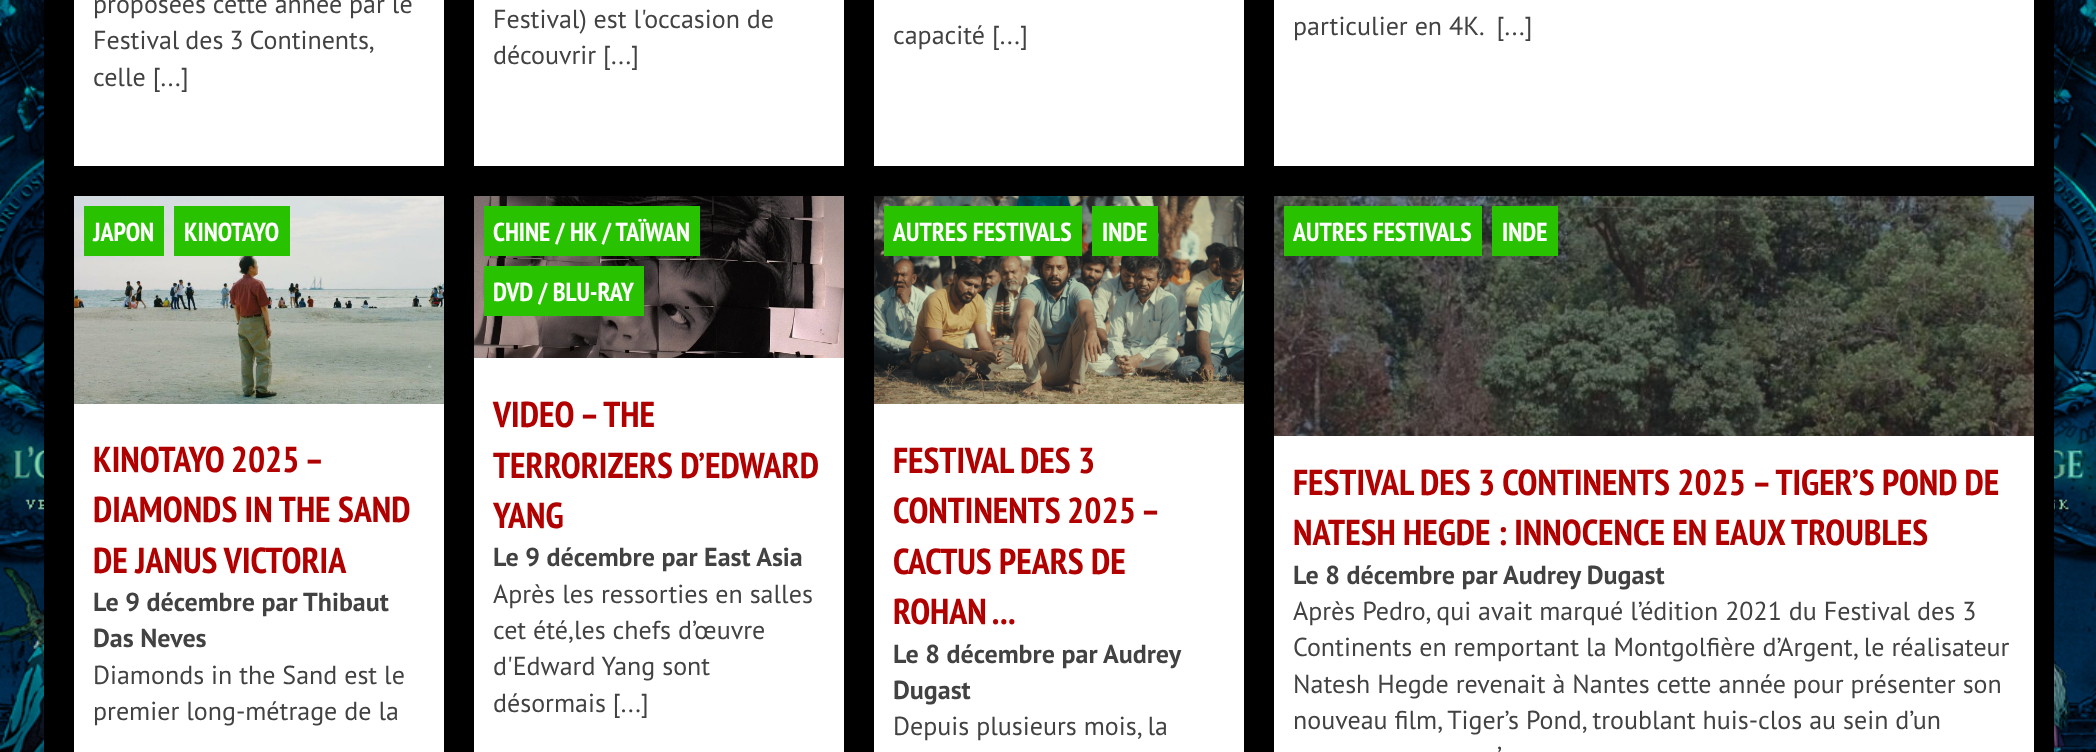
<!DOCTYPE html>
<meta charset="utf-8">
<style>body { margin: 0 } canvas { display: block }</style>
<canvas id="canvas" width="2096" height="752"></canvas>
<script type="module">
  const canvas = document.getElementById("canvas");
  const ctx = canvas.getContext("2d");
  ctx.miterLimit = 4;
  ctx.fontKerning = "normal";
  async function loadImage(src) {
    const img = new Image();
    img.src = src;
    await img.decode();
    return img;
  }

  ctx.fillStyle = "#ffffff";
  ctx.fillRect(0, 0, 2096, 752);
  ctx.drawImage(await loadImage("img1.png"), 0, 0, 2096, 752);
  ctx.fillStyle = "#000000";
  ctx.fillRect(44, 0, 2010, 752);
  ctx.fillStyle = "#ffffff";
  ctx.fillRect(74, 0, 370, 166);
  ctx.font = "26px PT Sans";
  ctx.fillStyle = "#424242";
  ctx.fillText("proposées cette année par le", 93, 13);
  ctx.wordSpacing = "-1px";
  ctx.fillText("Festival des 3 Continents,", 93, 49);
  ctx.wordSpacing = "0px";
  ctx.fillText("celle [...]", 93, 86);
  ctx.fillStyle = "#ffffff";
  ctx.fillRect(474, 0, 370, 166);
  ctx.fillStyle = "#424242";
  ctx.fillText("Festival) est l'occasion de", 493, 28);
  ctx.fillText("découvrir [...]", 493, 64);
  ctx.fillStyle = "#ffffff";
  ctx.fillRect(874, 0, 370, 166);
  ctx.fillStyle = "#424242";
  ctx.fillText("capacité [...]", 893, 44);
  ctx.fillStyle = "#ffffff";
  ctx.fillRect(1274, 0, 760, 166);
  ctx.fillStyle = "#424242";
  ctx.fillText("particulier en 4K.  [...]", 1293, 35);
  ctx.fillStyle = "#ffffff";
  ctx.fillRect(74, 404, 370, 348);
  ctx.drawImage(await loadImage("img2.png"), 74, 196, 370, 208);
  ctx.fillStyle = "#29c200";
  ctx.fillRect(84, 206, 80, 50);
  ctx.font = "bold 26px PT Sans Narrow";
  ctx.fillStyle = "#ffffff";
  ctx.fillText("JAPON", 93, 241);
  ctx.fillStyle = "#29c200";
  ctx.fillRect(174, 206, 116, 50);
  ctx.fillStyle = "#ffffff";
  ctx.fillText("KINOTAYO", 184, 241);
  ctx.wordSpacing = "-1px";
  ctx.font = "bold 36px PT Sans Narrow";
  ctx.fillStyle = "#b10000";
  ctx.fillText("KINOTAYO 2025 –", 93, 472);
  ctx.wordSpacing = "0px";
  ctx.fillText("DIAMONDS IN THE SAND", 93, 522);
  ctx.fillText("DE JANUS VICTORIA", 93, 573);
  ctx.font = "bold 26px PT Sans";
  ctx.fillStyle = "#424242";
  ctx.fillText("Le 9 décembre par", 93, 611);
  ctx.fillText("Thibaut", 303, 611);
  ctx.fillText("Das Neves", 93, 647);
  ctx.font = "26px PT Sans";
  ctx.fillText("Diamonds in the Sand est le", 93, 684);
  ctx.fillText("premier long-métrage de la", 93, 720);
  ctx.fillStyle = "#ffffff";
  ctx.fillRect(474, 358, 370, 394);
  ctx.drawImage(await loadImage("img3.png"), 474, 196, 370, 162);
  ctx.fillStyle = "#29c200";
  ctx.fillRect(484, 206, 216, 50);
  ctx.font = "bold 26px PT Sans Narrow";
  ctx.fillStyle = "#ffffff";
  ctx.fillText("CHINE / HK / TAÏWAN", 493, 241);
  ctx.fillStyle = "#29c200";
  ctx.fillRect(484, 266, 160, 50);
  ctx.fillStyle = "#ffffff";
  ctx.fillText("DVD / BLU-RAY", 493, 301);
  ctx.font = "bold 36px PT Sans Narrow";
  ctx.fillStyle = "#b10000";
  ctx.fillText("VIDEO – THE", 493, 427);
  ctx.fillText("TERRORIZERS D’EDWARD", 493, 478);
  ctx.fillText("YANG", 493, 528);
  ctx.font = "bold 26px PT Sans";
  ctx.fillStyle = "#424242";
  ctx.fillText("Le 9 décembre par East Asia", 493, 566);
  ctx.font = "26px PT Sans";
  ctx.fillText("Après les ressorties en salles", 493, 603);
  ctx.fillText("cet été,les chefs d’œuvre", 493, 639);
  ctx.fillText("d'Edward Yang sont", 493, 675);
  ctx.fillText("désormais [...]", 493, 712);
  ctx.fillStyle = "#ffffff";
  ctx.fillRect(874, 404, 370, 348);
  ctx.drawImage(await loadImage("img4.png"), 874, 196, 370, 208);
  ctx.fillStyle = "#29c200";
  ctx.fillRect(884, 206, 198, 50);
  ctx.font = "bold 26px PT Sans Narrow";
  ctx.fillStyle = "#ffffff";
  ctx.fillText("AUTRES FESTIVALS", 893, 241);
  ctx.fillStyle = "#29c200";
  ctx.fillRect(1092, 206, 66, 50);
  ctx.fillStyle = "#ffffff";
  ctx.fillText("INDE", 1102, 241);
  ctx.font = "bold 36px PT Sans Narrow";
  ctx.fillStyle = "#b10000";
  ctx.fillText("FESTIVAL DES 3", 893, 473);
  ctx.wordSpacing = "-1px";
  ctx.fillText("CONTINENTS 2025 –", 893, 523);
  ctx.wordSpacing = "0px";
  ctx.fillText("CACTUS PEARS DE", 893, 574);
  ctx.fillText("ROHAN ...", 893, 624);
  ctx.font = "bold 26px PT Sans";
  ctx.fillStyle = "#424242";
  ctx.fillText("Le 8 décembre par", 893, 663);
  ctx.fillText("Audrey", 1103, 663);
  ctx.fillText("Dugast", 893, 699);
  ctx.font = "26px PT Sans";
  ctx.fillText("Depuis plusieurs mois, la", 893, 735);
  ctx.fillStyle = "#ffffff";
  ctx.fillRect(1274, 436, 760, 316);
  ctx.drawImage(await loadImage("img5.png"), 1274, 196, 760, 240);
  ctx.fillStyle = "#29c200";
  ctx.fillRect(1284, 206, 198, 50);
  ctx.font = "bold 26px PT Sans Narrow";
  ctx.fillStyle = "#ffffff";
  ctx.fillText("AUTRES FESTIVALS", 1293, 241);
  ctx.fillStyle = "#29c200";
  ctx.fillRect(1492, 206, 66, 50);
  ctx.fillStyle = "#ffffff";
  ctx.fillText("INDE", 1502, 241);
  ctx.font = "bold 36px PT Sans Narrow";
  ctx.fillStyle = "#b10000";
  ctx.fillText("FESTIVAL DES 3 CONTINENTS 2025 – TIGER’S POND DE", 1293, 495);
  ctx.fillText("NATESH HEGDE : INNOCENCE EN EAUX TROUBLES", 1293, 545);
  ctx.font = "bold 26px PT Sans";
  ctx.fillStyle = "#424242";
  ctx.fillText("Le 8 décembre par", 1293, 584);
  ctx.fillText("Audrey Dugast", 1503, 584);
  ctx.font = "26px PT Sans";
  ctx.fillText("Après Pedro, qui avait marqué l’édition 2021 du Festival des 3", 1293, 620);
  ctx.fillText("Continents en remportant la Montgolfière d’Argent, le réalisateur", 1293, 656);
  ctx.fillText("Natesh Hegde revenait à Nantes cette année pour présenter son", 1293, 693);
  ctx.fillText("nouveau film, Tiger’s Pond, troublant huis-clos au sein d’un", 1293, 729);
  ctx.fillText("’", 1497, 765);
</script>
